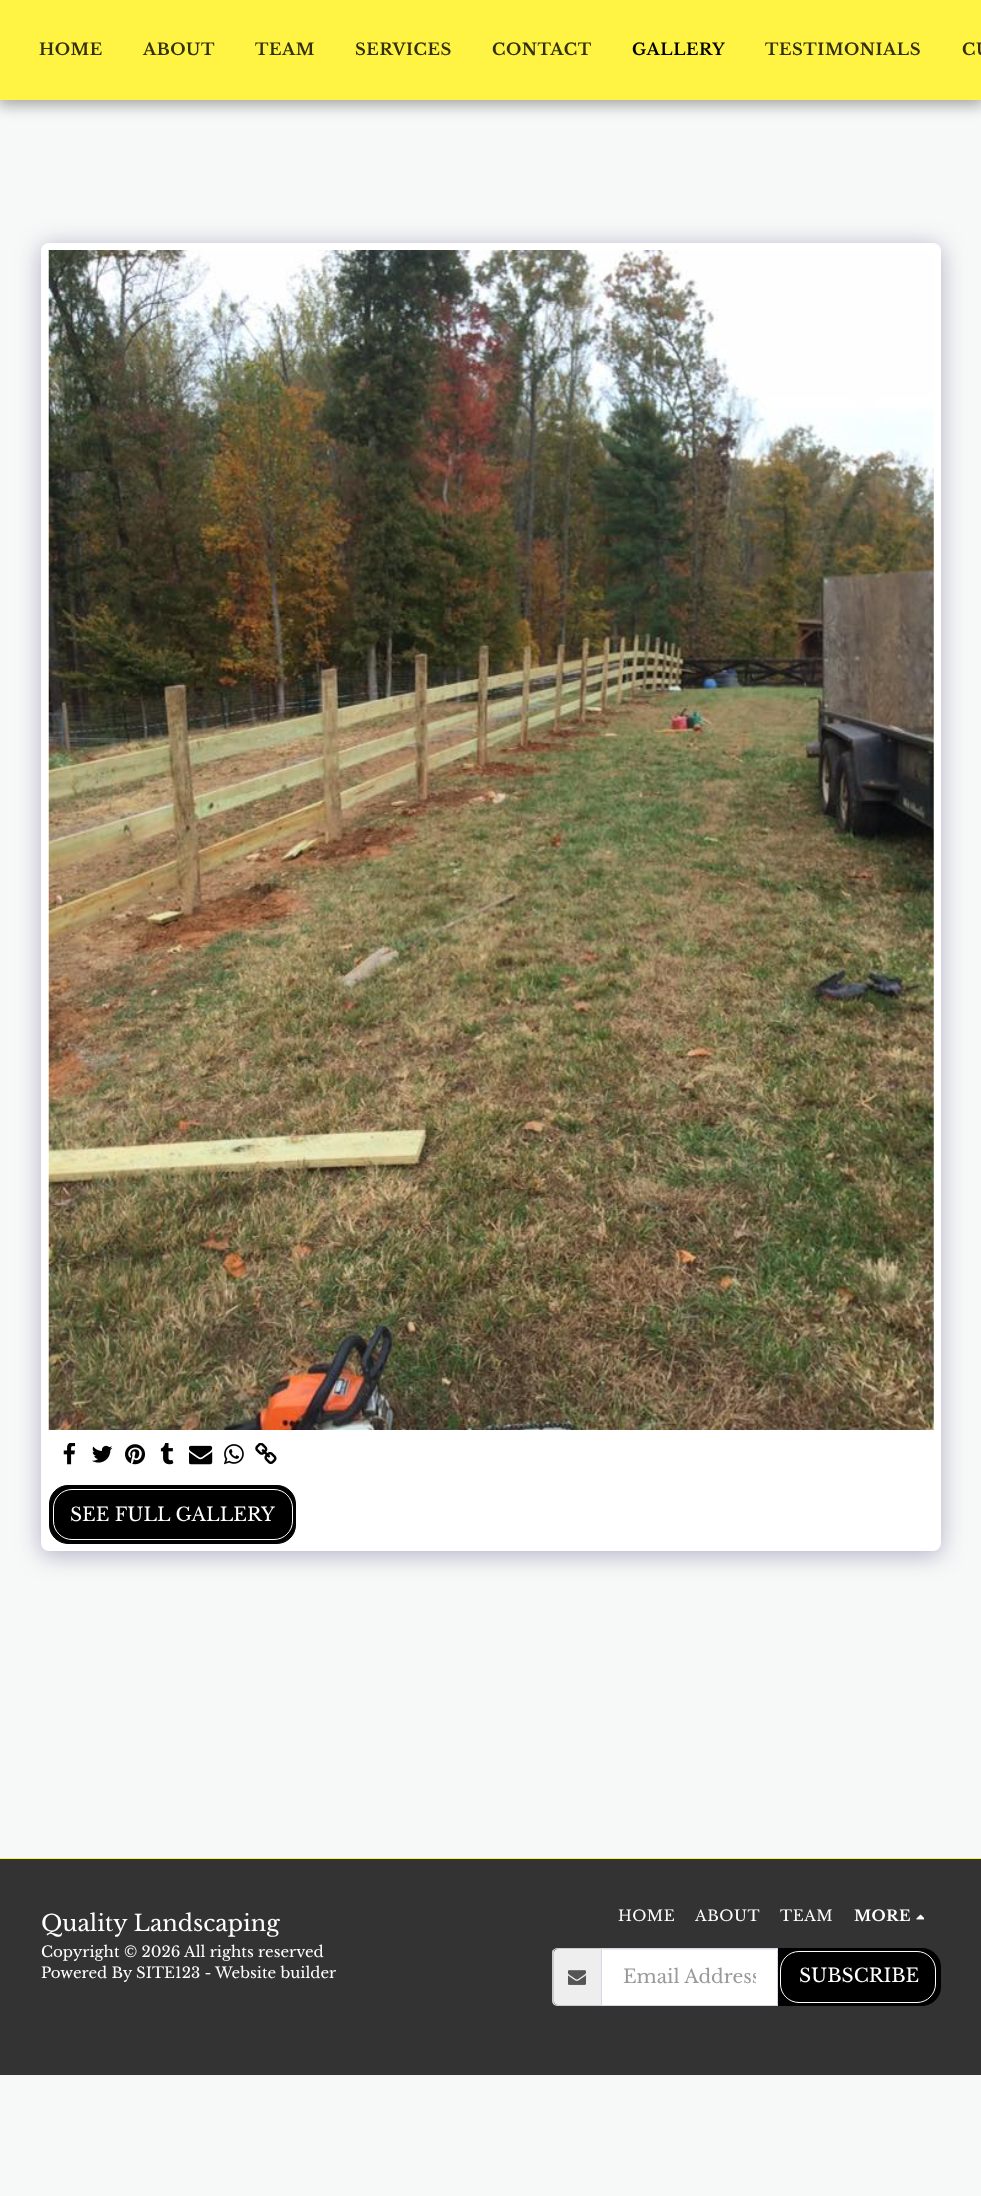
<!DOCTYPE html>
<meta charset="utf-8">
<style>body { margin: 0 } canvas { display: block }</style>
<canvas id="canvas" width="981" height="2196"></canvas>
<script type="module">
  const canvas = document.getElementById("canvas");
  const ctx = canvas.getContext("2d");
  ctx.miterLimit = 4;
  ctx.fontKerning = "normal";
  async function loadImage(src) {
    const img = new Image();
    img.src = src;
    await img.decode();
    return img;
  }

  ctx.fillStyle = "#f7f9f8";
  ctx.fillRect(0, 0, 981, 2196);
  ctx.fillStyle = "rgba(0, 0, 0, 0.35)";
  ctx.filter = "blur(7.5px)";
  ctx.beginPath();
  ctx.rect(-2, 0, 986, 105);
  ctx.fill();
  ctx.filter = "none";
  ctx.fillStyle = "#fff343";
  ctx.fillRect(0, 0, 981, 100);
  ctx.letterSpacing = "0.6px";
  ctx.font = "bold 16.25px Libre Baskerville";
  ctx.fillStyle = "#33310d";
  ctx.fillText("HOME", 39, 55);
  ctx.fillText("ABOUT", 143, 55);
  ctx.fillText("TEAM", 255, 55);
  ctx.fillText("SERVICES", 355, 55);
  ctx.fillText("CONTACT", 492, 55);
  ctx.fillStyle = "#000000";
  ctx.fillText("GALLERY", 632, 55);
  ctx.fillStyle = "#33310d";
  ctx.fillText("TESTIMONIALS", 765, 55);
  ctx.fillText("CU", 962, 55);
  ctx.fillStyle = "rgba(77, 63, 122, 0.4)";
  ctx.filter = "blur(12.5px)";
  ctx.beginPath();
  ctx.roundRect(41, 246, 900, 1309, 8);
  ctx.fill();
  ctx.filter = "none";
  ctx.fillStyle = "#ffffff";
  ctx.beginPath();
  ctx.roundRect(41, 243, 900, 1308, 8);
  ctx.fill();
  ctx.drawImage(await loadImage("img1.png"), 48, 250, 886, 1180);
  ctx.drawImage(await loadImage("img2.png"), 63, 1443, 13, 22);
  ctx.drawImage(await loadImage("img3.png"), 92, 1445, 21, 18);
  ctx.drawImage(await loadImage("img4.png"), 125, 1444, 20, 21);
  ctx.drawImage(await loadImage("img5.png"), 160, 1443, 14, 22);
  ctx.drawImage(await loadImage("img6.png"), 189, 1445, 24, 20);
  ctx.drawImage(await loadImage("img7.png"), 224, 1444, 20, 21);
  ctx.drawImage(await loadImage("img8.png"), 255, 1443, 22, 21);
  ctx.fillStyle = "#000000";
  ctx.beginPath();
  ctx.roundRect(49.5, 1485.5, 246, 58, 18.5);
  ctx.fill();
  ctx.strokeStyle = "#000000";
  ctx.stroke();
  ctx.beginPath();
  ctx.roundRect(53.5, 1489.5, 239, 50, 18.5);
  ctx.strokeStyle = "#ffffff";
  ctx.stroke();
  ctx.letterSpacing = "0px";
  ctx.font = "18.75px Libre Baskerville";
  ctx.fillStyle = "#ffffff";
  ctx.fillText("SEE FULL GALLERY", 70, 1521);
  ctx.fillStyle = "#333333";
  ctx.fillRect(0, 1859, 981, 216);
  ctx.fillStyle = "#fff343";
  ctx.fillRect(0, 1858, 981, 1);
  ctx.font = "22.5px Libre Baskerville";
  ctx.fillStyle = "#ffffff";
  ctx.fillText("Quality Landscaping", 41, 1931);
  ctx.font = "15px Libre Baskerville";
  ctx.fillText("Copyright © 2026 All rights reserved", 41, 1957);
  ctx.fillText("Powered By SITE123 - Website builder", 41, 1978);
  ctx.letterSpacing = "0.6px";
  ctx.fillText("HOME", 618, 1921);
  ctx.fillText("ABOUT", 695, 1921);
  ctx.fillText("TEAM", 780, 1921);
  ctx.font = "bold 15px Libre Baskerville";
  ctx.fillText("MORE", 854, 1921);
  ctx.drawImage(await loadImage("img9.png"), 916, 1914, 8, 6);
  ctx.fillStyle = "#eeeeee";
  ctx.beginPath();
  ctx.roundRect(554, 1949, 47, 56, [4, 0, 0, 4]);
  ctx.fill();
  ctx.fillStyle = "#cccccc";
  ctx.beginPath();
  ctx.moveTo(558, 1948);
  ctx.lineTo(601, 1948);
  ctx.lineTo(601, 2006);
  ctx.lineTo(558, 2006);
  ctx.bezierCurveTo(555, 2006, 552, 2004, 552, 2001);
  ctx.lineTo(552, 1952);
  ctx.bezierCurveTo(552, 1950, 555, 1948, 558, 1948);
  ctx.closePath();
  ctx.moveTo(558, 1949);
  ctx.lineTo(601, 1949);
  ctx.lineTo(601, 2005);
  ctx.lineTo(558, 2005);
  ctx.bezierCurveTo(555, 2005, 554, 2003, 554, 2001);
  ctx.lineTo(554, 1952);
  ctx.bezierCurveTo(554, 1950, 555, 1949, 558, 1949);
  ctx.closePath();
  ctx.fill("evenodd");
  ctx.drawImage(await loadImage("img10.png"), 568, 1970, 18, 15);
  ctx.fillStyle = "#000000";
  ctx.beginPath();
  ctx.roundRect(776.5, 1948.5, 164, 57, [0, 18.5, 18.5, 0]);
  ctx.fill();
  ctx.strokeStyle = "#000000";
  ctx.stroke();
  ctx.fillStyle = "#ffffff";
  ctx.fillRect(602, 1949, 175, 56);
  ctx.fillStyle = "#ececec";
  ctx.fillRect(603, 1949, 173, 1);
  ctx.strokeStyle = "#d4d7e5";
  ctx.strokeRect(601.5, 1948.5, 176, 57);
  ctx.save();
  ctx.beginPath();
  ctx.rect(623, 1965, 133, 24);
  ctx.clip();
  ctx.letterSpacing = "0px";
  ctx.font = "18.75px Libre Baskerville";
  ctx.fillStyle = "#999999";
  ctx.fillText("Email Address", 623, 1983);
  ctx.restore();
  ctx.beginPath();
  ctx.roundRect(780.5, 1951.5, 155, 51, 18.5);
  ctx.strokeStyle = "#ffffff";
  ctx.stroke();
  ctx.letterSpacing = "0px";
  ctx.font = "18.75px Libre Baskerville";
  ctx.fillStyle = "#ffffff";
  ctx.fillText("SUBSCRIBE", 799, 1982);
</script>
